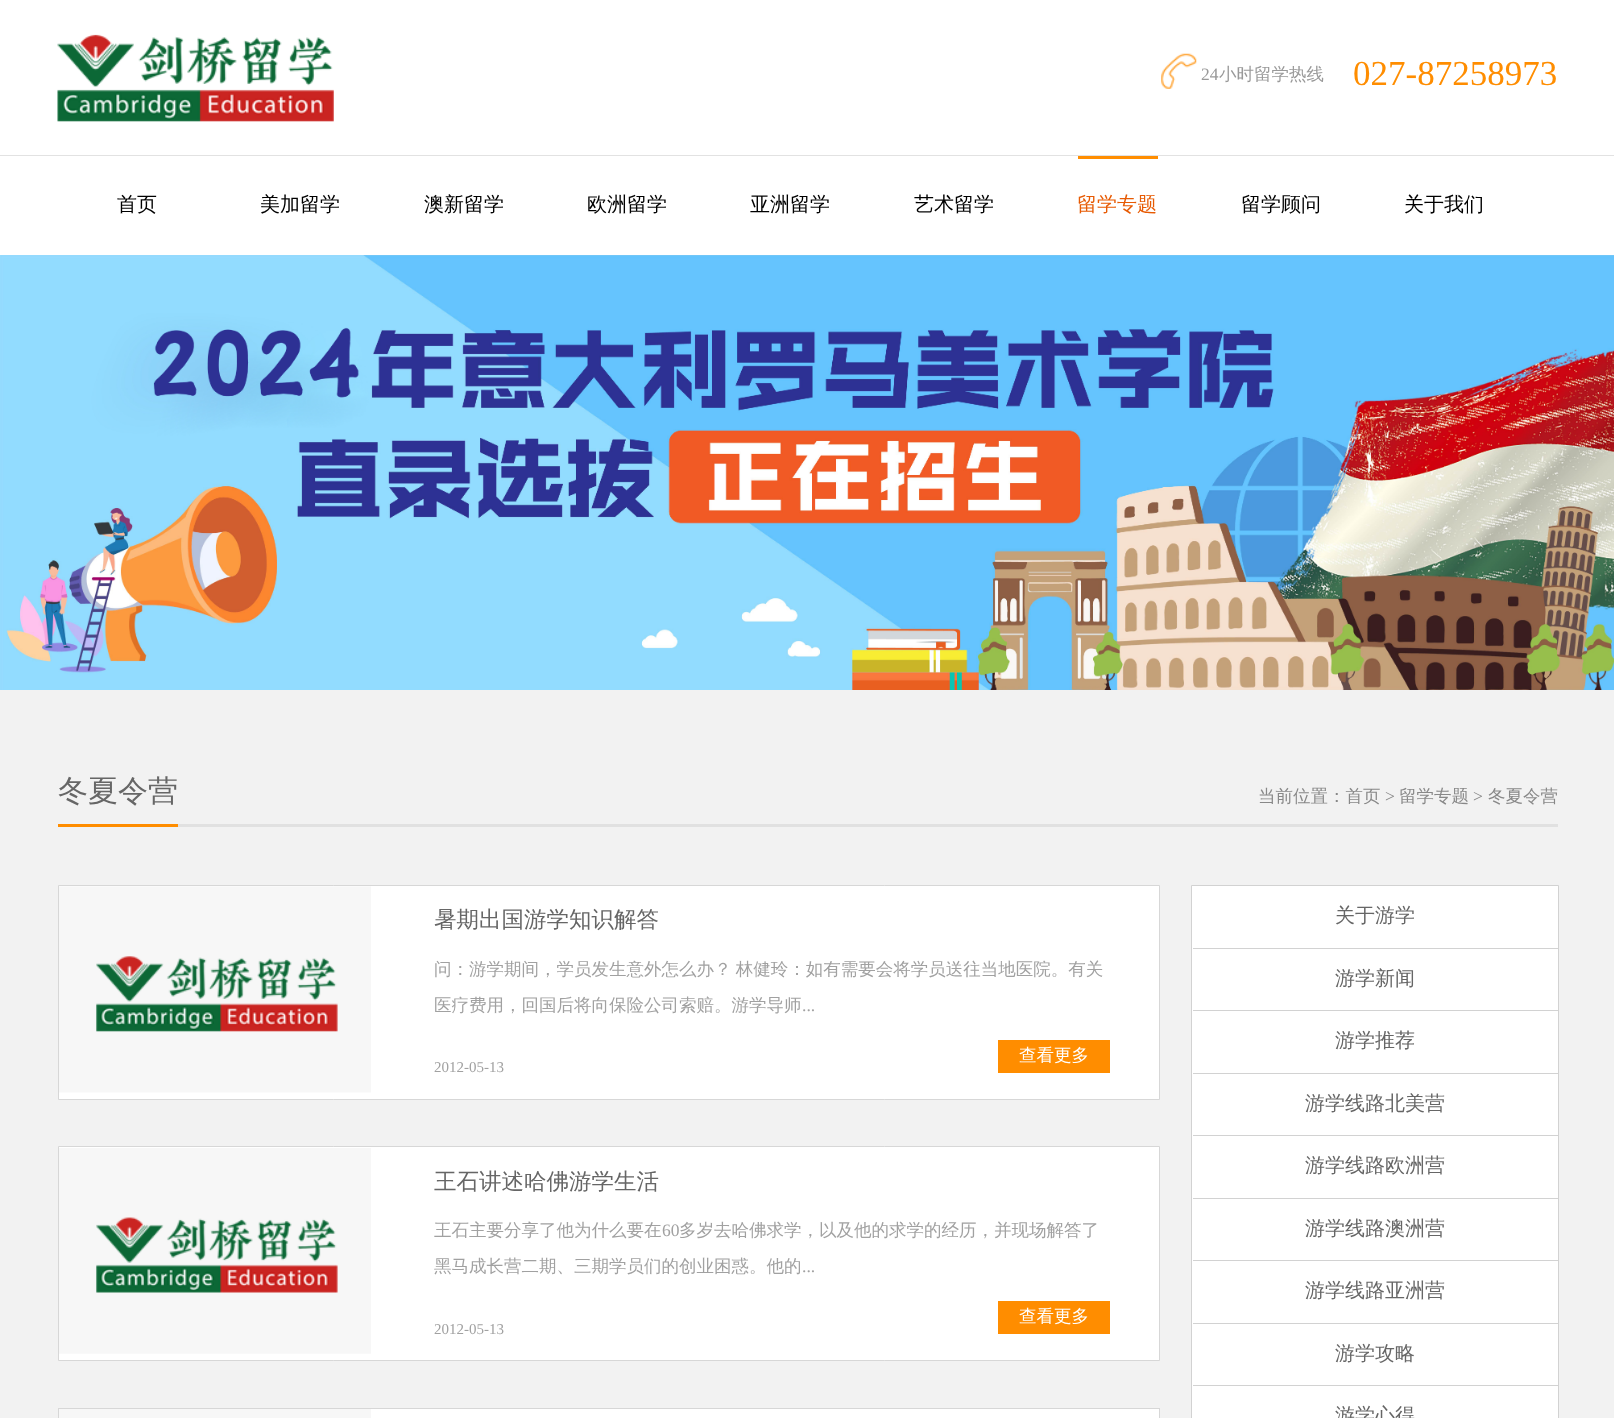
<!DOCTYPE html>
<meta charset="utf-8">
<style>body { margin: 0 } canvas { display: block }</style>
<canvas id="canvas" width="1614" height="1418"></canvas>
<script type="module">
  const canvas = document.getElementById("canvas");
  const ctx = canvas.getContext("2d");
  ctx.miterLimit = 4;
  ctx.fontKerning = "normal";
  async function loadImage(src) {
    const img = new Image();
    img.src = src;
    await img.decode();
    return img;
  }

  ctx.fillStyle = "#f2f2f2";
  ctx.fillRect(0, 0, 1614, 1418);
  ctx.fillStyle = "#ffffff";
  ctx.fillRect(0, 0, 1614, 255);
  ctx.drawImage(await loadImage("img1.png"), 57, 34, 277, 88);
  ctx.drawImage(await loadImage("img2.png"), 1161, 53, 36, 36);
  ctx.font = "17.5px Liberation Serif";
  ctx.fillStyle = "#999999";
  ctx.fillText("24", 1201, 80);
  ctx.font = "500 17.5px WenQuanYi Zen Hei";
  ctx.fillText("小时留学热线", 1219, 80);
  ctx.font = "35px Liberation Serif";
  ctx.fillStyle = "#ff8d00";
  ctx.fillText("027-87258973", 1353, 85);
  ctx.fillStyle = "#e2e2e2";
  ctx.fillRect(0, 155, 1614, 1);
  ctx.font = "500 20px WenQuanYi Zen Hei";
  ctx.fillStyle = "#000000";
  ctx.fillText("首页", 117, 211);
  ctx.fillText("美加留学", 260, 211);
  ctx.fillText("澳新留学", 424, 211);
  ctx.fillText("欧洲留学", 587, 211);
  ctx.fillText("亚洲留学", 750, 211);
  ctx.fillText("艺术留学", 914, 211);
  ctx.fillStyle = "#e75a03";
  ctx.fillText("留学专题", 1077, 211);
  ctx.fillStyle = "#ff8d00";
  ctx.fillRect(1078, 156, 80, 3);
  ctx.fillStyle = "#000000";
  ctx.fillText("留学顾问", 1241, 211);
  ctx.fillText("关于我们", 1404, 211);
  ctx.drawImage(await loadImage("img3.png"), 0, 255, 1614, 435);
  ctx.fillStyle = "#ff8d00";
  ctx.fillRect(58, 824, 120, 3);
  ctx.font = "500 30px WenQuanYi Zen Hei";
  ctx.fillStyle = "#666666";
  ctx.fillText("冬夏令营", 58, 801);
  ctx.font = "500 17.5px WenQuanYi Zen Hei";
  ctx.fillStyle = "#888888";
  ctx.fillText("当前位置：首页", 1258, 802);
  ctx.font = "17.5px Liberation Serif";
  ctx.fillText(">", 1385, 802);
  ctx.font = "500 17.5px WenQuanYi Zen Hei";
  ctx.fillText("留学专题", 1399, 802);
  ctx.font = "17.5px Liberation Serif";
  ctx.fillText(">", 1473, 802);
  ctx.font = "500 17.5px WenQuanYi Zen Hei";
  ctx.fillText("冬夏令营", 1488, 802);
  ctx.fillStyle = "#e1e1e1";
  ctx.fillRect(178, 824, 1380, 3);
  ctx.fillStyle = "#ffffff";
  ctx.beginPath();
  ctx.rect(58.5, 885.5, 1101, 214);
  ctx.fill();
  ctx.strokeStyle = "#d7d7d7";
  ctx.stroke();
  ctx.drawImage(await loadImage("img4.png"), 59, 886, 312, 207);
  ctx.font = "500 22.5px WenQuanYi Zen Hei";
  ctx.fillStyle = "#666666";
  ctx.fillText("暑期出国游学知识解答", 434, 927);
  ctx.wordSpacing = "-1px";
  ctx.font = "500 17.5px WenQuanYi Zen Hei";
  ctx.fillStyle = "#a1a1a1";
  ctx.fillText("问：游学期间，学员发生意外怎么办？ 林健玲：如有需要会将学员送往当地医院。有关", 434, 975);
  ctx.wordSpacing = "0px";
  ctx.fillText("医疗费用，回国后将向保险公司索赔。游学导师", 434, 1011);
  ctx.font = "17.5px Liberation Serif";
  ctx.fillText("...", 802, 1011);
  ctx.fillStyle = "#ff8d00";
  ctx.fillRect(998, 1040, 112, 33);
  ctx.font = "500 17.5px WenQuanYi Zen Hei";
  ctx.fillStyle = "#ffffff";
  ctx.fillText("查看更多", 1019, 1061);
  ctx.font = "15px Liberation Serif";
  ctx.fillStyle = "#a1a1a1";
  ctx.fillText("2012-05-13", 434, 1072);
  ctx.fillStyle = "#ffffff";
  ctx.beginPath();
  ctx.rect(58.5, 1146.5, 1101, 214);
  ctx.fill();
  ctx.stroke();
  ctx.drawImage(await loadImage("img5.png"), 59, 1148, 312, 206);
  ctx.font = "500 22.5px WenQuanYi Zen Hei";
  ctx.fillStyle = "#666666";
  ctx.fillText("王石讲述哈佛游学生活", 434, 1189);
  ctx.font = "500 17.5px WenQuanYi Zen Hei";
  ctx.fillStyle = "#a1a1a1";
  ctx.fillText("王石主要分享了他为什么要在", 434, 1236);
  ctx.font = "17.5px Liberation Serif";
  ctx.fillText("60", 662, 1236);
  ctx.font = "500 17.5px WenQuanYi Zen Hei";
  ctx.fillText("多岁去哈佛求学，以及他的求学的经历，并现场解答了", 679, 1236);
  ctx.fillText("黑马成长营二期、三期学员们的创业困惑。他的", 434, 1272);
  ctx.font = "17.5px Liberation Serif";
  ctx.fillText("...", 802, 1272);
  ctx.fillStyle = "#ff8d00";
  ctx.fillRect(998, 1301, 112, 33);
  ctx.font = "500 17.5px WenQuanYi Zen Hei";
  ctx.fillStyle = "#ffffff";
  ctx.fillText("查看更多", 1019, 1322);
  ctx.font = "15px Liberation Serif";
  ctx.fillStyle = "#a1a1a1";
  ctx.fillText("2012-05-13", 434, 1334);
  ctx.fillStyle = "#ffffff";
  ctx.fillRect(371, 1409, 788, 9);
  ctx.strokeRect(58.5, 1408.5, 1101, 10);
  ctx.fillStyle = "#f7f7f7";
  ctx.fillRect(59, 1409, 312, 9);
  ctx.fillStyle = "#ffffff";
  ctx.beginPath();
  ctx.rect(1191.5, 885.5, 367, 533);
  ctx.fill();
  ctx.strokeStyle = "#d2d2d2";
  ctx.stroke();
  ctx.fillStyle = "#d2d2d2";
  ctx.fillRect(1193, 948, 365, 1);
  ctx.font = "500 20px WenQuanYi Zen Hei";
  ctx.fillStyle = "#666666";
  ctx.fillText("关于游学", 1335, 922);
  ctx.fillStyle = "#d2d2d2";
  ctx.fillRect(1193, 1010, 365, 1);
  ctx.fillStyle = "#666666";
  ctx.fillText("游学新闻", 1335, 985);
  ctx.fillStyle = "#d2d2d2";
  ctx.fillRect(1193, 1073, 365, 1);
  ctx.fillStyle = "#666666";
  ctx.fillText("游学推荐", 1335, 1047);
  ctx.fillStyle = "#d2d2d2";
  ctx.fillRect(1193, 1135, 365, 1);
  ctx.fillStyle = "#666666";
  ctx.fillText("游学线路北美营", 1305, 1110);
  ctx.fillStyle = "#d2d2d2";
  ctx.fillRect(1193, 1198, 365, 1);
  ctx.fillStyle = "#666666";
  ctx.fillText("游学线路欧洲营", 1305, 1172);
  ctx.fillStyle = "#d2d2d2";
  ctx.fillRect(1193, 1260, 365, 1);
  ctx.fillStyle = "#666666";
  ctx.fillText("游学线路澳洲营", 1305, 1235);
  ctx.fillStyle = "#d2d2d2";
  ctx.fillRect(1193, 1323, 365, 1);
  ctx.fillStyle = "#666666";
  ctx.fillText("游学线路亚洲营", 1305, 1297);
  ctx.fillStyle = "#d2d2d2";
  ctx.fillRect(1193, 1385, 365, 1);
  ctx.fillStyle = "#666666";
  ctx.fillText("游学攻略", 1335, 1360);
  ctx.fillText("游学心得", 1335, 1422);
</script>
